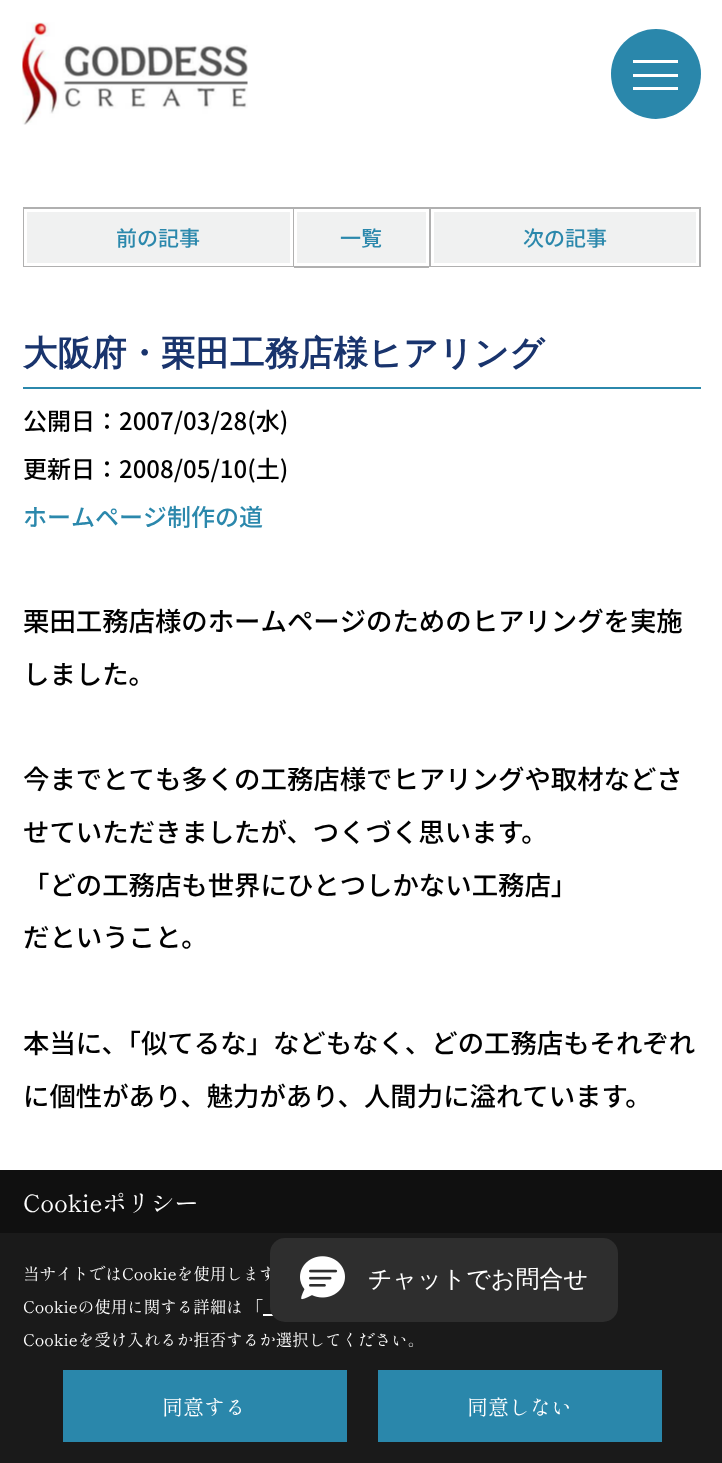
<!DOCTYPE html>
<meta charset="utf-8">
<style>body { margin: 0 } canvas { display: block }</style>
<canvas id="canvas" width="722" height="1463"></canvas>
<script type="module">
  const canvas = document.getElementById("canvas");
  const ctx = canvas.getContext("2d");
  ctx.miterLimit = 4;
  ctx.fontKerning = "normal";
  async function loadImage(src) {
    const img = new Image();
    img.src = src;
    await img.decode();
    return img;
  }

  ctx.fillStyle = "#ffffff";
  ctx.fillRect(0, 0, 722, 1463);
  ctx.drawImage(await loadImage("img1.png"), 22, 22, 226, 103);
  ctx.fillStyle = "#2a87ab";
  ctx.beginPath();
  ctx.arc(656, 74, 45, 0, Math.PI * 2);
  ctx.fill();
  ctx.fillStyle = "#ffffff";
  ctx.fillRect(633, 60, 45, 3);
  ctx.fillRect(633, 74, 45, 3);
  ctx.fillRect(633, 87, 45, 3);
  ctx.strokeStyle = "#b0b0b0";
  ctx.lineWidth = 2;
  ctx.strokeRect(24, 208, 269, 58);
  ctx.fillStyle = "#f0f1f1";
  ctx.beginPath();
  ctx.rect(25.5, 210.5, 266, 54);
  ctx.fill();
  ctx.strokeStyle = "#ffffff";
  ctx.lineWidth = 3;
  ctx.stroke();
  ctx.font = "500 21px Noto Sans JP";
  ctx.fillStyle = "#2b88ac";
  ctx.fillText("前の記事", 116, 246);
  ctx.fillStyle = "#b0b0b0";
  ctx.fillRect(294, 207, 135, 2);
  ctx.fillRect(294, 266, 135, 2);
  ctx.fillStyle = "#f0f1f1";
  ctx.fillRect(297, 212, 129, 51);
  ctx.fillStyle = "#2b88ac";
  ctx.fillText("一覧", 340, 246);
  ctx.strokeStyle = "#b0b0b0";
  ctx.lineWidth = 2;
  ctx.strokeRect(430, 208, 270, 58);
  ctx.fillStyle = "#f0f1f1";
  ctx.beginPath();
  ctx.rect(432.5, 210.5, 265, 54);
  ctx.fill();
  ctx.strokeStyle = "#ffffff";
  ctx.lineWidth = 3;
  ctx.stroke();
  ctx.fillStyle = "#2b88ac";
  ctx.fillText("次の記事", 523, 246);
  ctx.fillRect(23, 387, 678, 2);
  ctx.font = "bold 34.5px WenQuanYi Zen Hei";
  ctx.fillStyle = "#19346d";
  ctx.fillText("大阪府・栗田工務店様ヒアリング", 23, 365);
  ctx.font = "500 24px Noto Sans JP";
  ctx.fillStyle = "#000000";
  ctx.fillText("公開日：2007/03/28(水)", 23, 430);
  ctx.fillText("更新日：2008/05/10(土)", 23, 478);
  ctx.fillStyle = "#2b88ac";
  ctx.fillText("ホームページ制作の道", 23, 526);
  ctx.font = "500 26.4px Noto Sans JP";
  ctx.fillStyle = "#000000";
  ctx.fillText("栗田工務店様のホームページのためのヒアリングを実施", 23, 631);
  ctx.fillText("しました。", 23, 684);
  ctx.fillText("今までとても多くの工務店様でヒアリングや取材などさ", 23, 789);
  ctx.fillText("せていただきましたが、つくづく思います。", 23, 842);
  ctx.fillText("「どの工務店も世界にひとつしかない工務店」", 23, 895);
  ctx.fillText("だということ。", 23, 947);
  ctx.fillText("本当に、「似てるな」などもなく、どの工務店もそれぞれ", 23, 1053);
  ctx.fillText("に個性があり、魅力があり、人間力に溢れています。", 23, 1106);
  ctx.fillStyle = "#101010";
  ctx.fillRect(0, 1170, 722, 63);
  ctx.font = "24px Shippori Mincho";
  ctx.fillStyle = "#ffffff";
  ctx.fillText("Cookieポリシー", 23, 1212);
  ctx.fillStyle = "#1a1a1a";
  ctx.fillRect(0, 1233, 722, 230);
  ctx.font = "16.5px Shippori Mincho";
  ctx.fillStyle = "#ffffff";
  ctx.fillText("当サイトではCookieを使用します", 23, 1280);
  ctx.fillText("Cookieの使用に関する詳細は 「", 23, 1313);
  ctx.fillRect(263, 1314, 10, 2);
  ctx.fillText("Cookieを受け入れるか拒否するか選択してください。", 23, 1346);
  ctx.fillStyle = "#2a87ab";
  ctx.fillRect(63, 1370, 284, 72);
  ctx.font = "21px Shippori Mincho";
  ctx.fillStyle = "#ffffff";
  ctx.fillText("同意する", 162, 1415);
  ctx.fillStyle = "#2a87ab";
  ctx.fillRect(378, 1370, 284, 72);
  ctx.fillStyle = "#ffffff";
  ctx.fillText("同意しない", 467, 1415);
  ctx.fillStyle = "#2e2e2e";
  ctx.beginPath();
  ctx.roundRect(270, 1238, 348, 84, 15);
  ctx.fill();
  ctx.drawImage(await loadImage("img2.png"), 300, 1256, 45, 44);
  ctx.font = "500 24px WenQuanYi Zen Hei";
  ctx.fillStyle = "#ffffff";
  ctx.fillText("チャットでお問合せ", 368, 1287);
</script>
